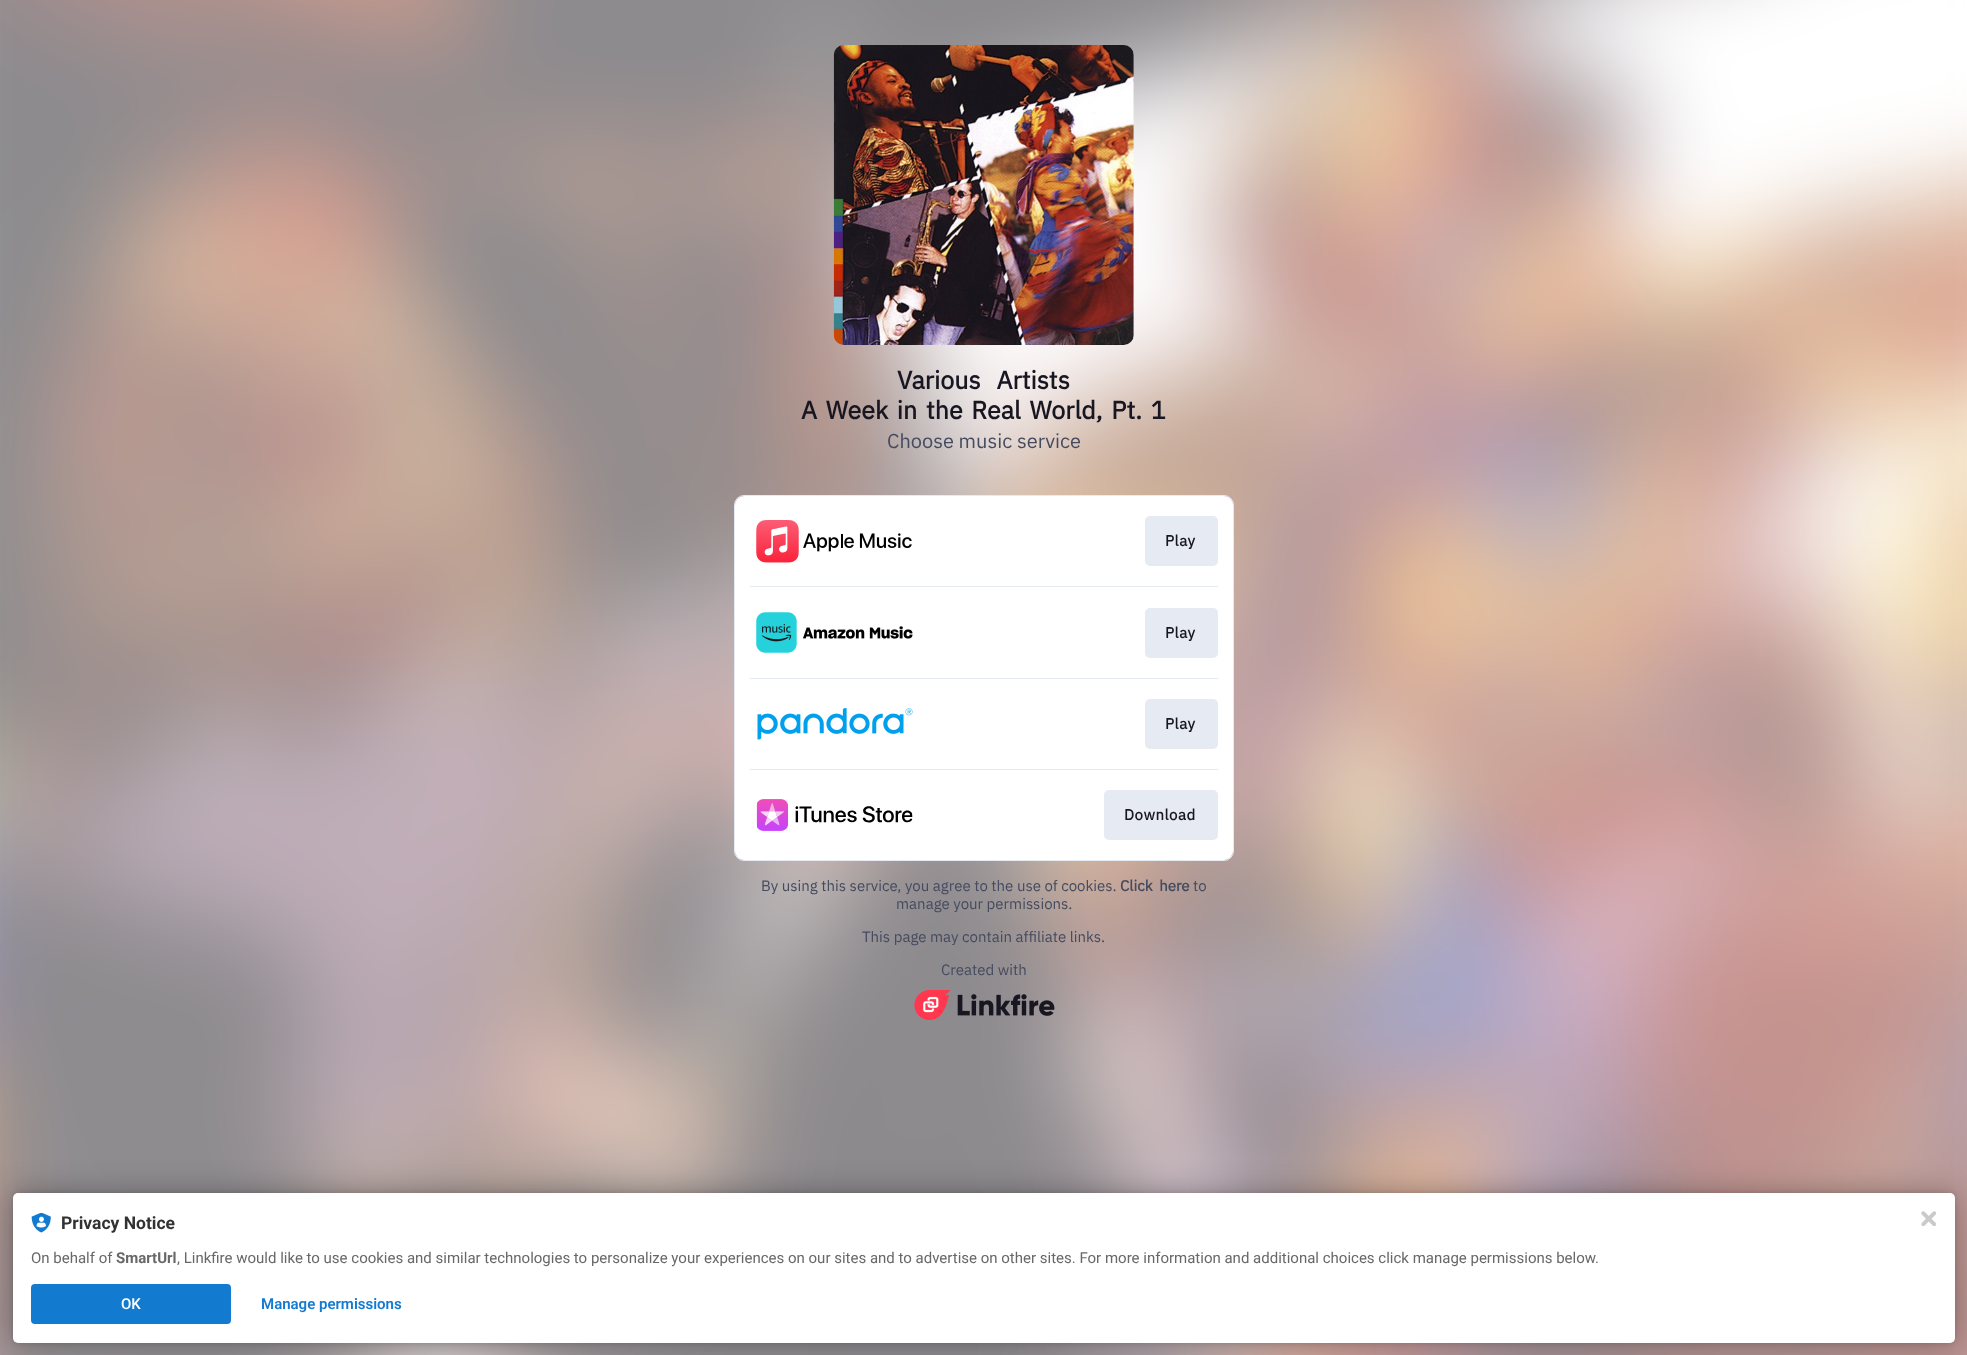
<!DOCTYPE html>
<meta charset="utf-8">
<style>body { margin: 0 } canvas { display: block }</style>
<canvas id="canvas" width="1967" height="1355"></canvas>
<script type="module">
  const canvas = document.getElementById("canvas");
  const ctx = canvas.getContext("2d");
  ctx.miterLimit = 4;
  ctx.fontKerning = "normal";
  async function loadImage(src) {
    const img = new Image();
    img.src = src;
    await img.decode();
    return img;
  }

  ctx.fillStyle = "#ffffff";
  ctx.fillRect(0, 0, 1967, 1355);
  ctx.drawImage(await loadImage("img1.png"), 0, 0, 1967, 1355);
  ctx.drawImage(await loadImage("img2.png"), 833, 45, 301, 300);
  ctx.wordSpacing = "10px";
  ctx.font = "bold 25px IBM Plex Sans";
  ctx.fillStyle = "#181721";
  ctx.fillText("Various Artists", 897, 389);
  ctx.wordSpacing = "2.75px";
  ctx.fillText("A Week in the Real World, Pt. 1", 801, 419);
  ctx.wordSpacing = "0px";
  ctx.font = "20px IBM Plex Sans";
  ctx.fillStyle = "#454b5f";
  ctx.fillText("Choose music service", 887, 448);
  ctx.beginPath();
  ctx.roundRect(734.5, 495.5, 499, 365, 9.5);
  ctx.strokeStyle = "#e6eaf2";
  ctx.stroke();
  ctx.fillStyle = "#ffffff";
  ctx.beginPath();
  ctx.roundRect(735, 496, 498, 364, 9);
  ctx.fill();
  ctx.drawImage(await loadImage("img3.png"), 756, 520, 156, 43);
  ctx.fillStyle = "#e6eaf2";
  ctx.beginPath();
  ctx.roundRect(1145, 516, 73, 50, 5);
  ctx.fill();
  ctx.letterSpacing = "0.5px";
  ctx.font = "bold 15px IBM Plex Sans";
  ctx.fillStyle = "#181721";
  ctx.fillText("Play", 1165, 546);
  ctx.fillStyle = "#e6eaf2";
  ctx.fillRect(750, 586, 468, 1);
  ctx.drawImage(await loadImage("img4.png"), 756, 612, 157, 41);
  ctx.beginPath();
  ctx.roundRect(1145, 608, 73, 50, 5);
  ctx.fill();
  ctx.fillStyle = "#181721";
  ctx.fillText("Play", 1165, 638);
  ctx.fillStyle = "#e6eaf2";
  ctx.fillRect(750, 678, 468, 1);
  ctx.drawImage(await loadImage("img5.png"), 757, 708, 156, 32);
  ctx.beginPath();
  ctx.roundRect(1145, 699, 73, 50, 5);
  ctx.fill();
  ctx.fillStyle = "#181721";
  ctx.fillText("Play", 1165, 729);
  ctx.fillStyle = "#e6eaf2";
  ctx.fillRect(750, 769, 468, 1);
  ctx.drawImage(await loadImage("img6.png"), 756, 799, 157, 32);
  ctx.beginPath();
  ctx.roundRect(1104, 790, 114, 50, 5);
  ctx.fill();
  ctx.fillStyle = "#181721";
  ctx.fillText("Download", 1124, 820);
  ctx.letterSpacing = "0px";
  ctx.font = "15px IBM Plex Sans";
  ctx.fillStyle = "#454b5f";
  ctx.fillText("By using this service, you agree to the use of cookies.", 761, 891);
  ctx.wordSpacing = "3px";
  ctx.font = "bold 15px IBM Plex Sans";
  ctx.fillText("Click here", 1120, 891);
  ctx.wordSpacing = "0px";
  ctx.font = "15px IBM Plex Sans";
  ctx.fillText("to", 1193, 891);
  ctx.fillText("manage your permissions.", 896, 909);
  ctx.fillText("This page may contain affiliate links.", 862, 942);
  ctx.fillText("Created with", 941, 975);
  ctx.drawImage(await loadImage("img7.png"), 914, 990, 141, 30);
  ctx.fillStyle = "rgba(0, 0, 0, 0.12)";
  ctx.filter = "blur(2.5px)";
  ctx.beginPath();
  ctx.roundRect(13, 1193, 1942, 150, 5);
  ctx.fill();
  ctx.filter = "none";
  ctx.fillStyle = "rgba(0, 0, 0, 0.3)";
  ctx.filter = "blur(15px)";
  ctx.beginPath();
  ctx.roundRect(13, 1193, 1942, 150, 5);
  ctx.fill();
  ctx.filter = "none";
  ctx.fillStyle = "#ffffff";
  ctx.beginPath();
  ctx.roundRect(13, 1193, 1942, 150, 5);
  ctx.fill();
  ctx.drawImage(await loadImage("img8.png"), 31, 1213, 20, 20);
  ctx.font = "bold 17.5px Roboto";
  ctx.fillStyle = "#323232";
  ctx.fillText("Privacy Notice", 61, 1229);
  ctx.font = "15px Roboto";
  ctx.fillStyle = "#686868";
  ctx.fillText("On behalf of", 31, 1263);
  ctx.font = "bold 15px Roboto";
  ctx.fillText("SmartUrl", 116, 1263);
  ctx.font = "15px Roboto";
  ctx.fillText(", Linkfire would like to use cookies and similar technologies to personalize your experiences on our sites and to advertise on other sites. For more information and additional choices click manage permissions below.", 177, 1263);
  ctx.fillStyle = "#137bcf";
  ctx.beginPath();
  ctx.roundRect(31, 1284, 200, 40, 4);
  ctx.fill();
  ctx.font = "500 15px Roboto";
  ctx.fillStyle = "#ffffff";
  ctx.fillText("OK", 121, 1309);
  ctx.font = "600 15px Roboto";
  ctx.fillStyle = "#137bcf";
  ctx.fillText("Manage permissions", 261, 1309);
  ctx.drawImage(await loadImage("img9.png"), 1921, 1211, 15, 15);
</script>
